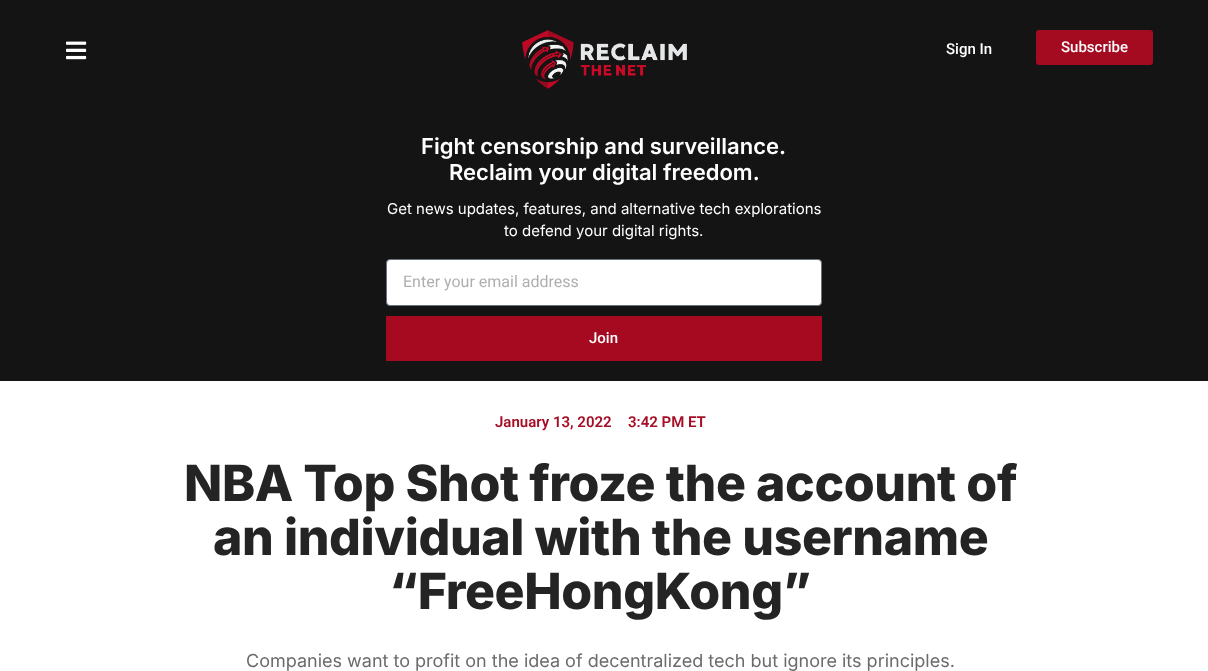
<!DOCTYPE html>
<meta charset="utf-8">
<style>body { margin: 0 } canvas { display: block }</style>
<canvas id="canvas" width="1208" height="671"></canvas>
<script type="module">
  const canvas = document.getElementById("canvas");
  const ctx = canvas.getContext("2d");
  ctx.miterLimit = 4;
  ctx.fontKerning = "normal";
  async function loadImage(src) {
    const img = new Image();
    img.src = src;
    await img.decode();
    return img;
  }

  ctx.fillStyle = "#ffffff";
  ctx.fillRect(0, 0, 1208, 671);
  ctx.fillStyle = "#141414";
  ctx.fillRect(0, 0, 1208, 381);
  ctx.drawImage(await loadImage("img1.png"), 66, 41, 21, 19);
  ctx.drawImage(await loadImage("img2.png"), 522, 30, 165, 59);
  ctx.font = "500 15px Roboto";
  ctx.fillStyle = "#ffffff";
  ctx.fillText("Sign In", 946, 54);
  ctx.fillStyle = "#a40b20";
  ctx.beginPath();
  ctx.roundRect(1036, 30, 117, 35, 3);
  ctx.fill();
  ctx.fillStyle = "#ffffff";
  ctx.fillText("Subscribe", 1061, 52);
  ctx.font = "600 22px Inter";
  ctx.fillText("Fight censorship and surveillance.", 421, 154);
  ctx.fillText("Reclaim your digital freedom.", 449, 180);
  ctx.font = "15px Inter";
  ctx.fillText("Get news updates, features, and alternative tech explorations", 387, 214);
  ctx.fillText("to defend your digital rights.", 504, 236);
  ctx.beginPath();
  ctx.roundRect(386.5, 259.5, 435, 46, 3.5);
  ctx.fill();
  ctx.strokeStyle = "#69727d";
  ctx.stroke();
  ctx.font = "16px Roboto";
  ctx.fillStyle = "#afafaf";
  ctx.fillText("Enter your email address", 403, 287);
  ctx.fillStyle = "#a50a20";
  ctx.fillRect(386, 316, 436, 45);
  ctx.font = "500 15px Roboto";
  ctx.fillStyle = "#ffffff";
  ctx.fillText("Join", 589, 343);
  ctx.font = "600 15px Roboto";
  ctx.fillStyle = "#a50e25";
  ctx.fillText("January 13, 2022", 495, 427);
  ctx.fillText("3:42 PM ET", 628, 427);
  ctx.letterSpacing = "-0.4px";
  ctx.font = "800 50px Inter";
  ctx.fillStyle = "#242424";
  ctx.fillText("NBA Top Shot froze the account of", 184, 501);
  ctx.fillText("an individual with the username", 213, 555);
  ctx.fillText("“FreeHongKong”", 389, 609);
  ctx.letterSpacing = "0px";
  ctx.font = "18px Inter";
  ctx.fillStyle = "#6b6b6b";
  ctx.fillText("Companies want to profit on the idea of decentralized tech but ignore its principles.", 246, 667);
</script>
